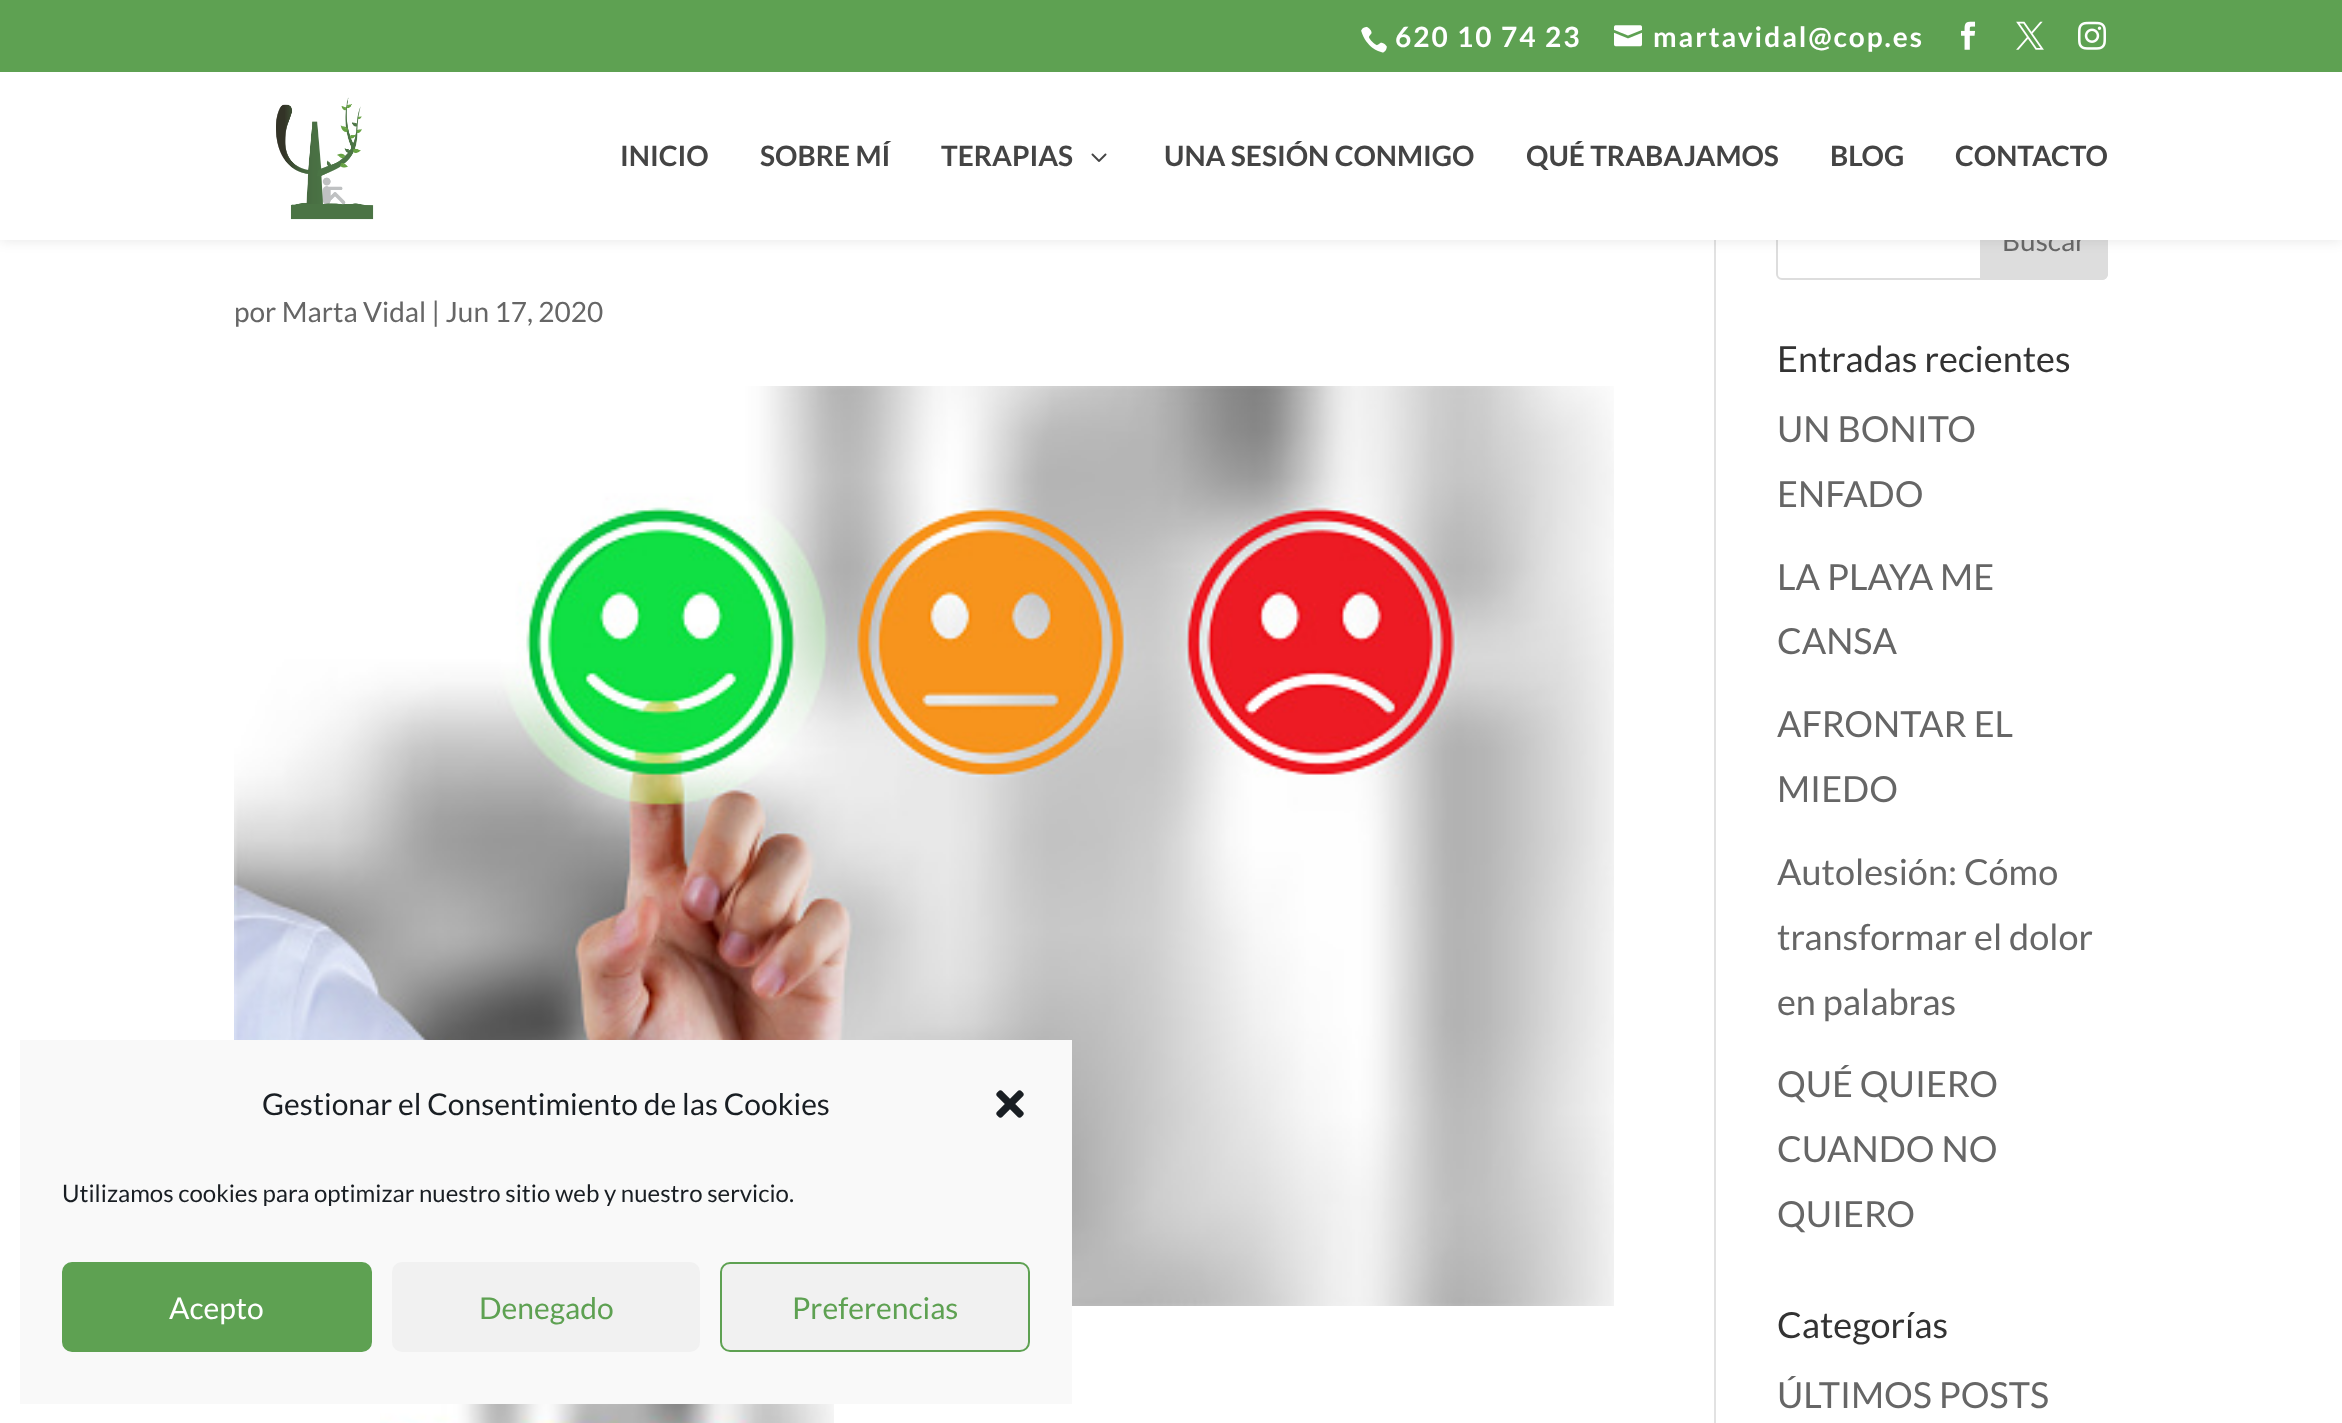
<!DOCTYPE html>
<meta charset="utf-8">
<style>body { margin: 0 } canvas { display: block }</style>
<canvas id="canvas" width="2342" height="1423"></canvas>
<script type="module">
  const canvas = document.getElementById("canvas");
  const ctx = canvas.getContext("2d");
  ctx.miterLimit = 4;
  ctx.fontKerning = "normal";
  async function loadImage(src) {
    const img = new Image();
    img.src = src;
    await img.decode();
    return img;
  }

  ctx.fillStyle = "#ffffff";
  ctx.fillRect(0, 0, 2342, 1423);
  ctx.beginPath();
  ctx.roundRect(1777, 201, 330, 78, 5);
  ctx.strokeStyle = "#dddddd";
  ctx.lineWidth = 2;
  ctx.stroke();
  ctx.fillStyle = "#dddddd";
  ctx.beginPath();
  ctx.roundRect(1981, 201, 126, 78, [0, 5, 5, 0]);
  ctx.fill();
  ctx.stroke();
  ctx.fillStyle = "#e2e2e2";
  ctx.fillRect(1714, 240, 2, 1183);
  ctx.fillStyle = "rgba(0, 0, 0, 0.1)";
  ctx.filter = "blur(7px)";
  ctx.beginPath();
  ctx.rect(0, 72, 2342, 168);
  ctx.fill();
  ctx.filter = "none";
  ctx.fillStyle = "#5ea152";
  ctx.fillRect(0, 0, 2342, 72);
  ctx.drawImage(await loadImage("img1.png"), 1361, 26, 26, 27);
  ctx.letterSpacing = "2px";
  ctx.font = "bold 28px Lato";
  ctx.fillStyle = "#ffffff";
  ctx.fillText("620 10 74 23", 1395, 47);
  ctx.drawImage(await loadImage("img2.png"), 1614, 25, 28, 22);
  ctx.fillText("martavidal@cop.es", 1653, 47);
  ctx.drawImage(await loadImage("img3.png"), 1961, 21, 15, 29);
  ctx.drawImage(await loadImage("img4.png"), 2016, 21, 28, 29);
  ctx.drawImage(await loadImage("img5.png"), 2078, 21, 28, 29);
  ctx.letterSpacing = "0px";
  ctx.font = "28px Lato";
  ctx.fillStyle = "#666666";
  ctx.fillText("Buscar", 2002, 251);
  ctx.fillStyle = "#ffffff";
  ctx.fillRect(0, 72, 2342, 168);
  ctx.drawImage(await loadImage("img6.png"), 276, 97, 98, 123);
  ctx.font = "bold 28px Lato";
  ctx.fillStyle = "#444444";
  ctx.fillText("INICIO", 620, 166);
  ctx.fillText("SOBRE MÍ", 760, 166);
  ctx.fillText("TERAPIAS", 941, 166);
  ctx.drawImage(await loadImage("img7.png"), 1091, 153, 16, 9);
  ctx.fillText("UNA SESIÓN CONMIGO", 1164, 166);
  ctx.fillText("QUÉ TRABAJAMOS", 1526, 166);
  ctx.fillText("BLOG", 1830, 166);
  ctx.fillText("CONTACTO", 1955, 166);
  ctx.font = "28px Lato";
  ctx.fillStyle = "#666666";
  ctx.fillText("por Marta Vidal | Jun 17, 2020", 234, 322);
  ctx.drawImage(await loadImage("img8.png"), 234, 386, 1380, 920);
  ctx.drawImage(await loadImage("img9.png"), 380, 1404, 454, 19);
  ctx.font = "36px Lato";
  ctx.fillStyle = "#333333";
  ctx.fillText("Entradas recientes", 1777, 372);
  ctx.fillStyle = "#666666";
  ctx.fillText("UN BONITO", 1777, 442);
  ctx.fillText("ENFADO", 1777, 507);
  ctx.fillText("LA PLAYA ME", 1777, 590);
  ctx.fillText("CANSA", 1777, 654);
  ctx.fillText("AFRONTAR EL", 1777, 737);
  ctx.fillText("MIEDO", 1777, 802);
  ctx.fillText("Autolesión: Cómo", 1777, 885);
  ctx.fillText("transformar el dolor", 1777, 950);
  ctx.fillText("en palabras", 1777, 1015);
  ctx.fillText("QUÉ QUIERO", 1777, 1097);
  ctx.fillText("CUANDO NO", 1777, 1162);
  ctx.fillText("QUIERO", 1777, 1227);
  ctx.fillStyle = "#333333";
  ctx.fillText("Categorías", 1777, 1338);
  ctx.fillStyle = "#666666";
  ctx.fillText("ÚLTIMOS POSTS", 1777, 1408);
  ctx.fillStyle = "#f9f9f9";
  ctx.fillRect(20, 1040, 1052, 364);
  ctx.font = "30px Lato";
  ctx.fillStyle = "#191e23";
  ctx.fillText("Gestionar el Consentimiento de las Cookies", 262, 1115);
  ctx.drawImage(await loadImage("img10.png"), 996, 1090, 28, 28);
  ctx.font = "24px Lato";
  ctx.fillText("Utilizamos cookies para optimizar nuestro sitio web y nuestro servicio.", 62, 1202);
  ctx.fillStyle = "#5ea152";
  ctx.beginPath();
  ctx.roundRect(63, 1263, 308, 88, 9);
  ctx.fill();
  ctx.strokeStyle = "#5ea152";
  ctx.stroke();
  ctx.font = "30px Lato";
  ctx.fillStyle = "#ffffff";
  ctx.fillText("Acepto", 169, 1319);
  ctx.fillStyle = "#f1f1f1";
  ctx.beginPath();
  ctx.roundRect(392, 1262, 308, 90, 10);
  ctx.fill();
  ctx.fillStyle = "#5ea152";
  ctx.fillText("Denegado", 479, 1319);
  ctx.fillStyle = "#f1f1f1";
  ctx.beginPath();
  ctx.roundRect(721, 1263, 308, 88, 9);
  ctx.fill();
  ctx.stroke();
  ctx.fillStyle = "#5ea152";
  ctx.fillText("Preferencias", 792, 1319);
</script>
